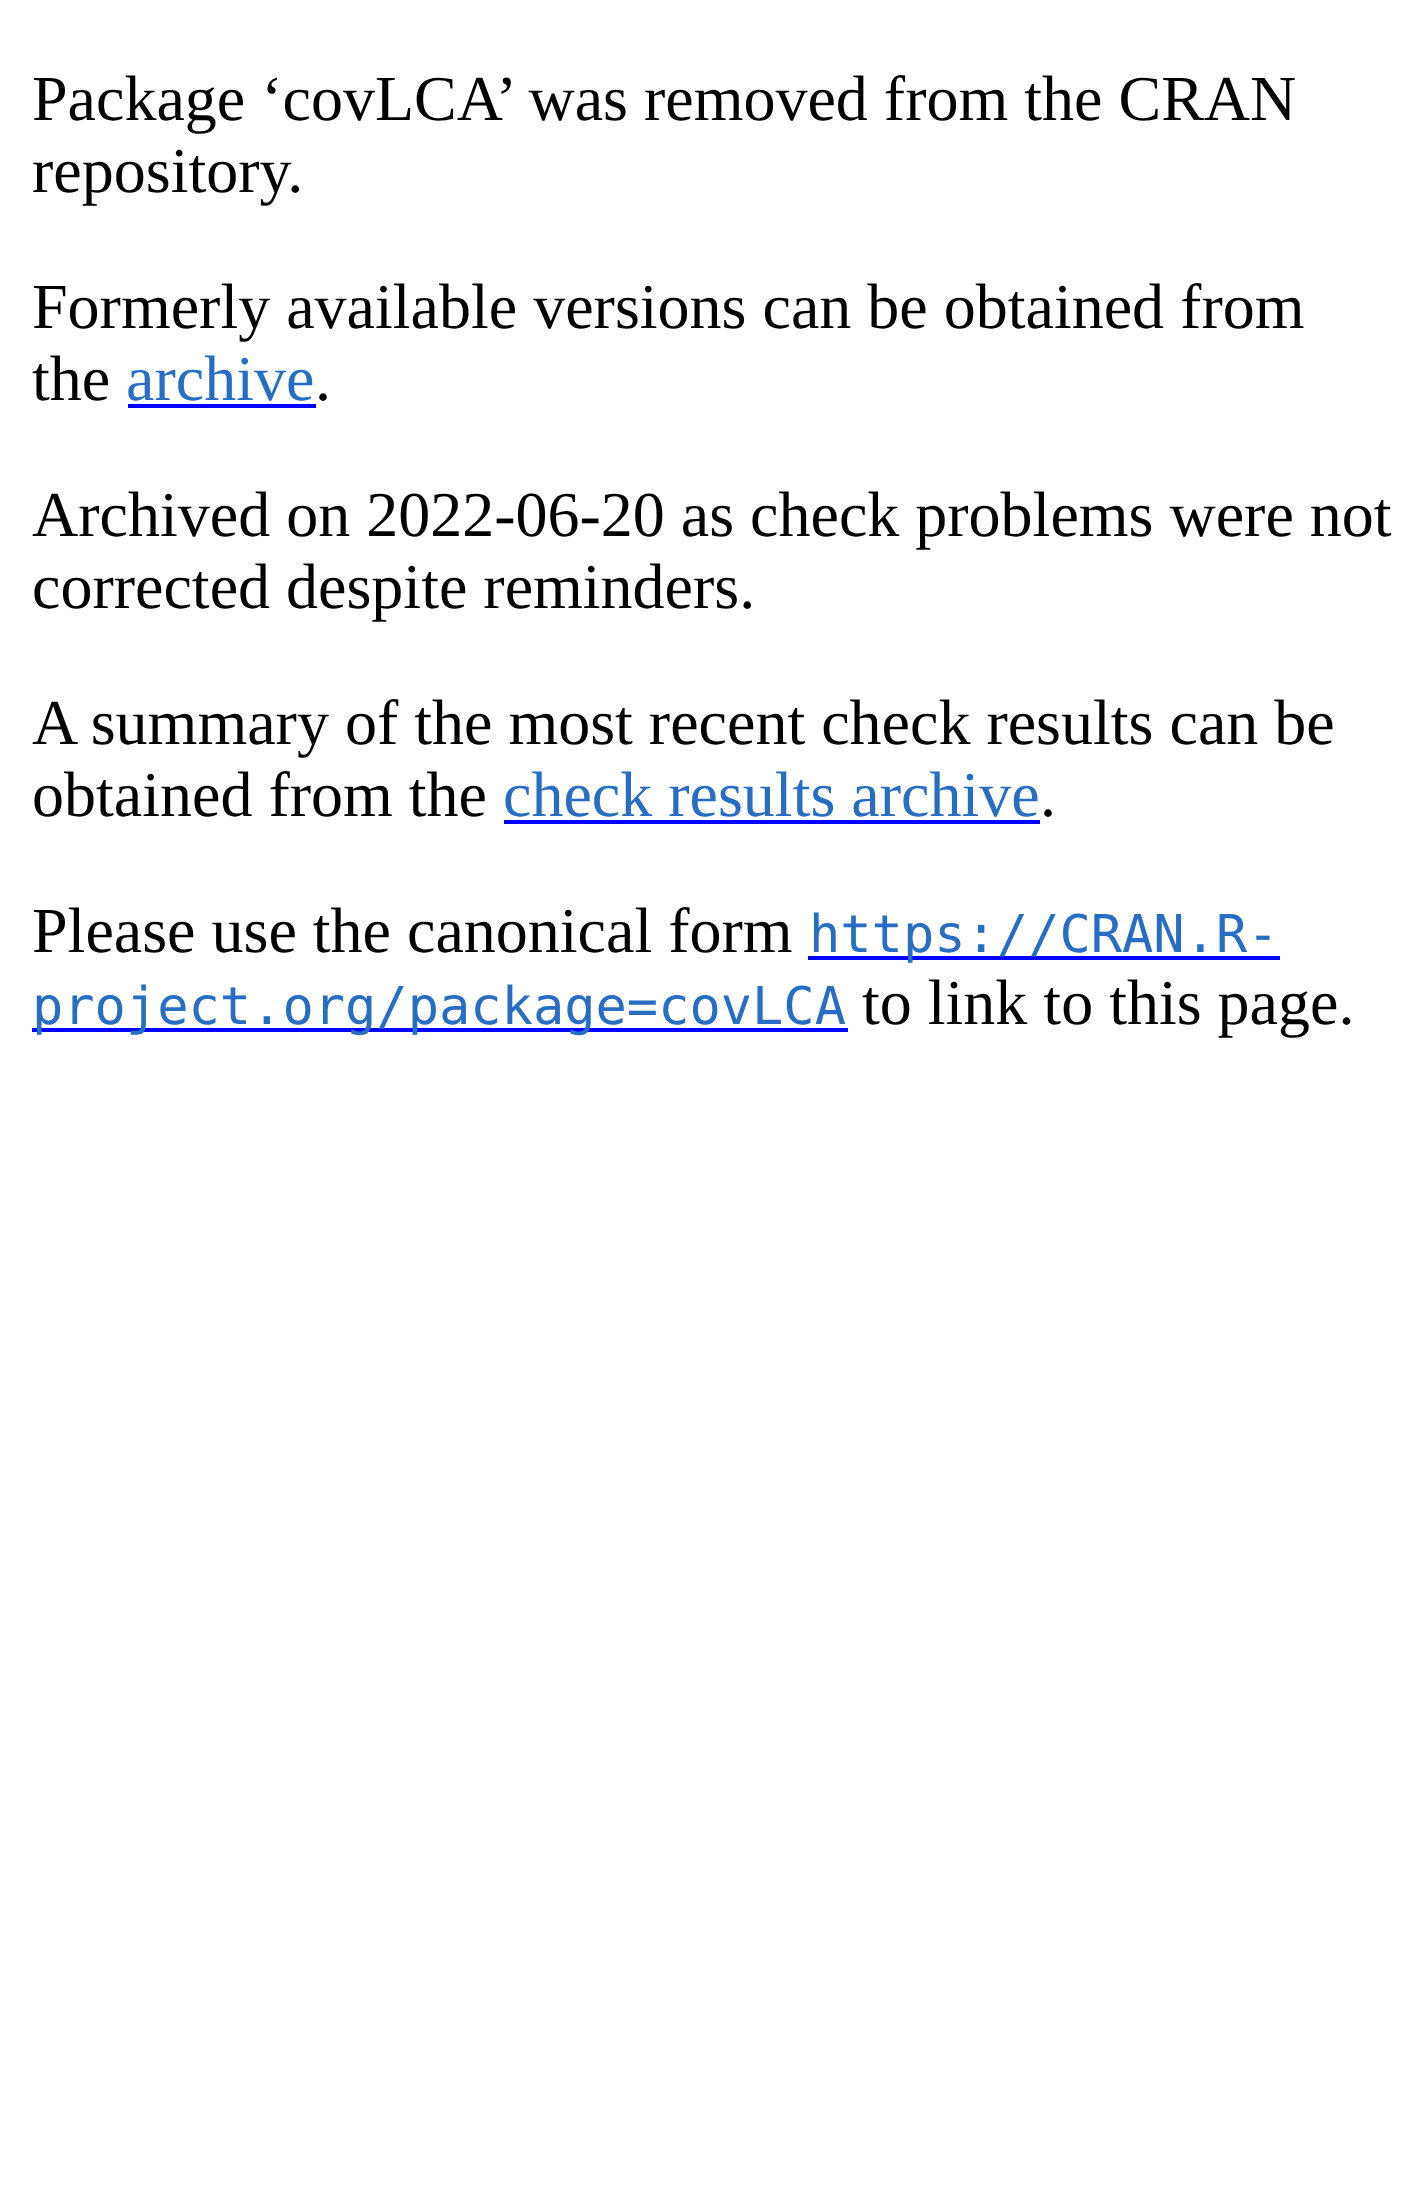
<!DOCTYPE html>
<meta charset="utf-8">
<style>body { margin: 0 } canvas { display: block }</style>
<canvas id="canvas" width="1426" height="2205"></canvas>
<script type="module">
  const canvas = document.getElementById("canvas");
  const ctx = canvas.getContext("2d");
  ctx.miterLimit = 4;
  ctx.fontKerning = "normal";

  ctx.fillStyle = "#ffffff";
  ctx.fillRect(0, 0, 1426, 2205);
  ctx.font = "64px Liberation Serif";
  ctx.fillStyle = "#000000";
  ctx.fillText("Package ‘covLCA’ was removed from the CRAN", 32, 120);
  ctx.fillText("repository.", 32, 192);
  ctx.fillText("Formerly available versions can be obtained from", 32, 328);
  ctx.fillText("the", 32, 400);
  ctx.fillStyle = "#276dc3";
  ctx.fillText("archive", 126, 400);
  ctx.fillStyle = "#0000ff";
  ctx.fillRect(128, 404, 188, 4);
  ctx.fillStyle = "#000000";
  ctx.fillText(".", 315, 400);
  ctx.fillText("Archived on 2022-06-20 as check problems were not", 32, 536);
  ctx.fillText("corrected despite reminders.", 32, 608);
  ctx.fillText("A summary of the most recent check results can be", 32, 744);
  ctx.fillText("obtained from the", 32, 816);
  ctx.fillStyle = "#276dc3";
  ctx.fillText("check results archive", 503, 816);
  ctx.fillStyle = "#0000ff";
  ctx.fillRect(504, 820, 536, 4);
  ctx.fillStyle = "#000000";
  ctx.fillText(".", 1040, 816);
  ctx.fillText("Please use the canonical form", 32, 952);
  ctx.fillStyle = "#0000ff";
  ctx.fillRect(808, 956, 472, 4);
  ctx.font = "52px DejaVu Sans Mono";
  ctx.fillStyle = "#276dc3";
  ctx.fillText("https://CRAN.R-", 809, 952);
  ctx.fillStyle = "#0000ff";
  ctx.fillRect(32, 1028, 816, 4);
  ctx.fillStyle = "#276dc3";
  ctx.fillText("project.org/package=covLCA", 32, 1024);
  ctx.font = "64px Liberation Serif";
  ctx.fillStyle = "#000000";
  ctx.fillText("to link to this page.", 862, 1024);
</script>
